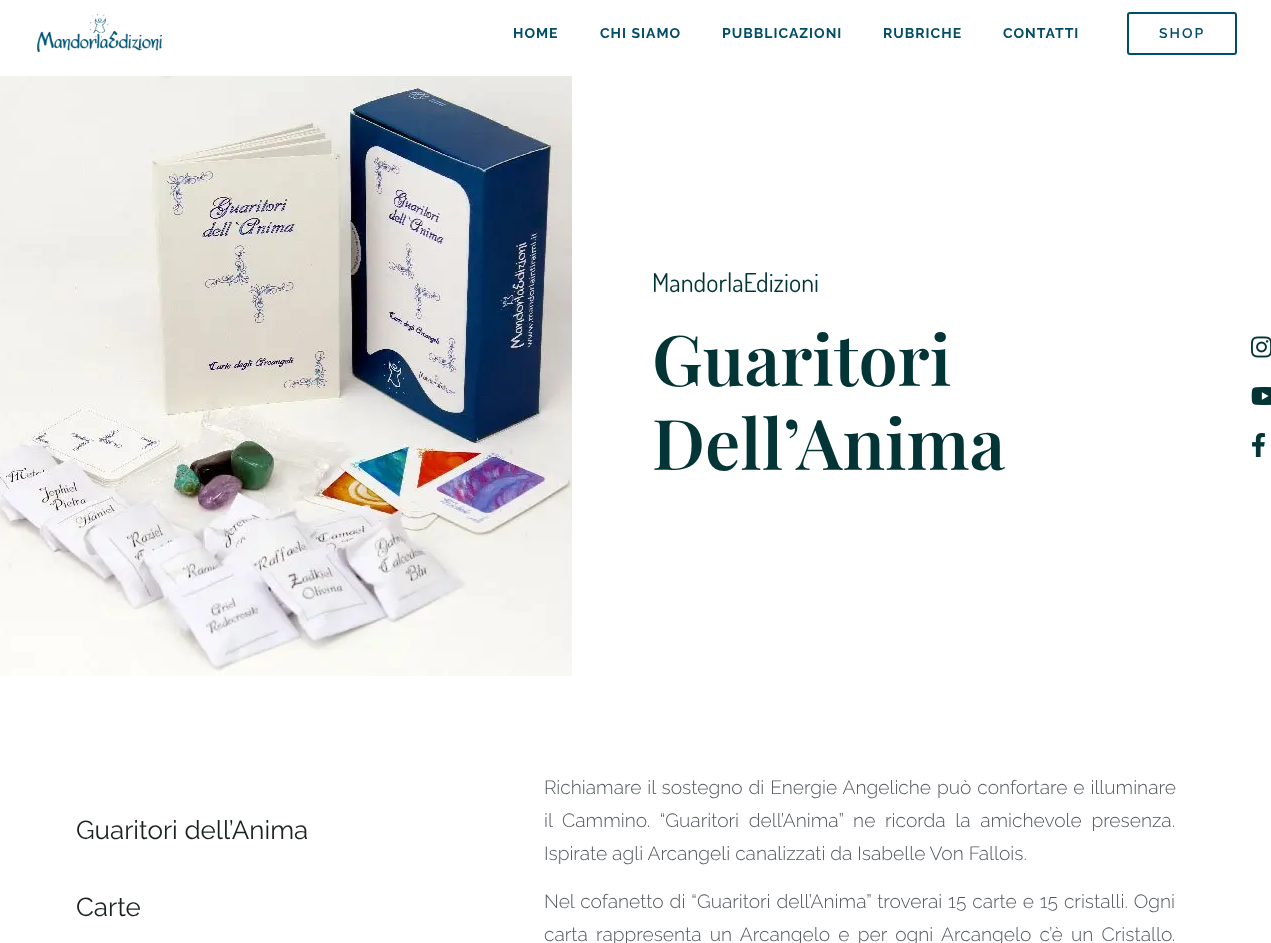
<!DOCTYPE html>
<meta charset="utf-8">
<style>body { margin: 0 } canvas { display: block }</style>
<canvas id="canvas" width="1271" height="943"></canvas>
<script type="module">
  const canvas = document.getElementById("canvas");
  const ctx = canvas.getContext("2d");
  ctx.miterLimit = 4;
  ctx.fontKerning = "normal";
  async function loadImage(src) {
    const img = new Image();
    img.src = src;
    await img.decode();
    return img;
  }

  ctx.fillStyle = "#ffffff";
  ctx.fillRect(0, 0, 1271, 943);
  ctx.drawImage(await loadImage("img1.png"), 37, 14, 125, 38);
  ctx.letterSpacing = "1px";
  ctx.font = "bold 14px Raleway";
  ctx.fillStyle = "#004d69";
  ctx.fillText("HOME", 513, 38);
  ctx.fillText("CHI SIAMO", 600, 38);
  ctx.fillText("PUBBLICAZIONI", 722, 38);
  ctx.fillText("RUBRICHE", 883, 38);
  ctx.fillText("CONTATTI", 1003, 38);
  ctx.beginPath();
  ctx.roundRect(1128, 13, 108, 41, 2);
  ctx.strokeStyle = "#004d69";
  ctx.lineWidth = 2;
  ctx.stroke();
  ctx.letterSpacing = "2px";
  ctx.font = "600 14px Raleway";
  ctx.fillText("SHOP", 1159, 38);
  ctx.drawImage(await loadImage("img2.png"), 0, 76, 572, 600);
  ctx.letterSpacing = "0px";
  ctx.font = "26px Dosis";
  ctx.fillStyle = "#033537";
  ctx.fillText("MandorlaEdizioni", 652, 292);
  ctx.font = "600 70px Playfair Display";
  ctx.fillText("Guaritori", 652, 386);
  ctx.fillText("Dell’Anima", 652, 470);
  ctx.drawImage(await loadImage("img3.png"), 1251, 336, 20, 22);
  ctx.drawImage(await loadImage("img4.png"), 1251, 387, 20, 18);
  ctx.drawImage(await loadImage("img5.png"), 1252, 433, 13, 24);
  ctx.font = "26px Raleway";
  ctx.fillStyle = "#1c2122";
  ctx.fillText("Guaritori dell’Anima", 76, 839);
  ctx.fillText("Carte", 76, 916);
  ctx.wordSpacing = "1px";
  ctx.font = "300 19.2px Raleway";
  ctx.fillStyle = "#54595f";
  ctx.fillText("Richiamare il sostegno di Energie Angeliche può confortare e illuminare", 544, 794);
  ctx.wordSpacing = "4.75px";
  ctx.fillText("il Cammino. “Guaritori dell’Anima” ne ricorda la amichevole presenza.", 544, 827);
  ctx.wordSpacing = "0px";
  ctx.fillText("Ispirate agli Arcangeli canalizzati da Isabelle Von Fallois.", 544, 860);
  ctx.wordSpacing = "1px";
  ctx.fillText("Nel cofanetto di “Guaritori dell’Anima” troverai 15 carte e 15 cristalli. Ogni", 544, 908);
  ctx.wordSpacing = "3.4px";
  ctx.fillText("carta rappresenta un Arcangelo e per ogni Arcangelo c’è un Cristallo.", 544, 941);
</script>
